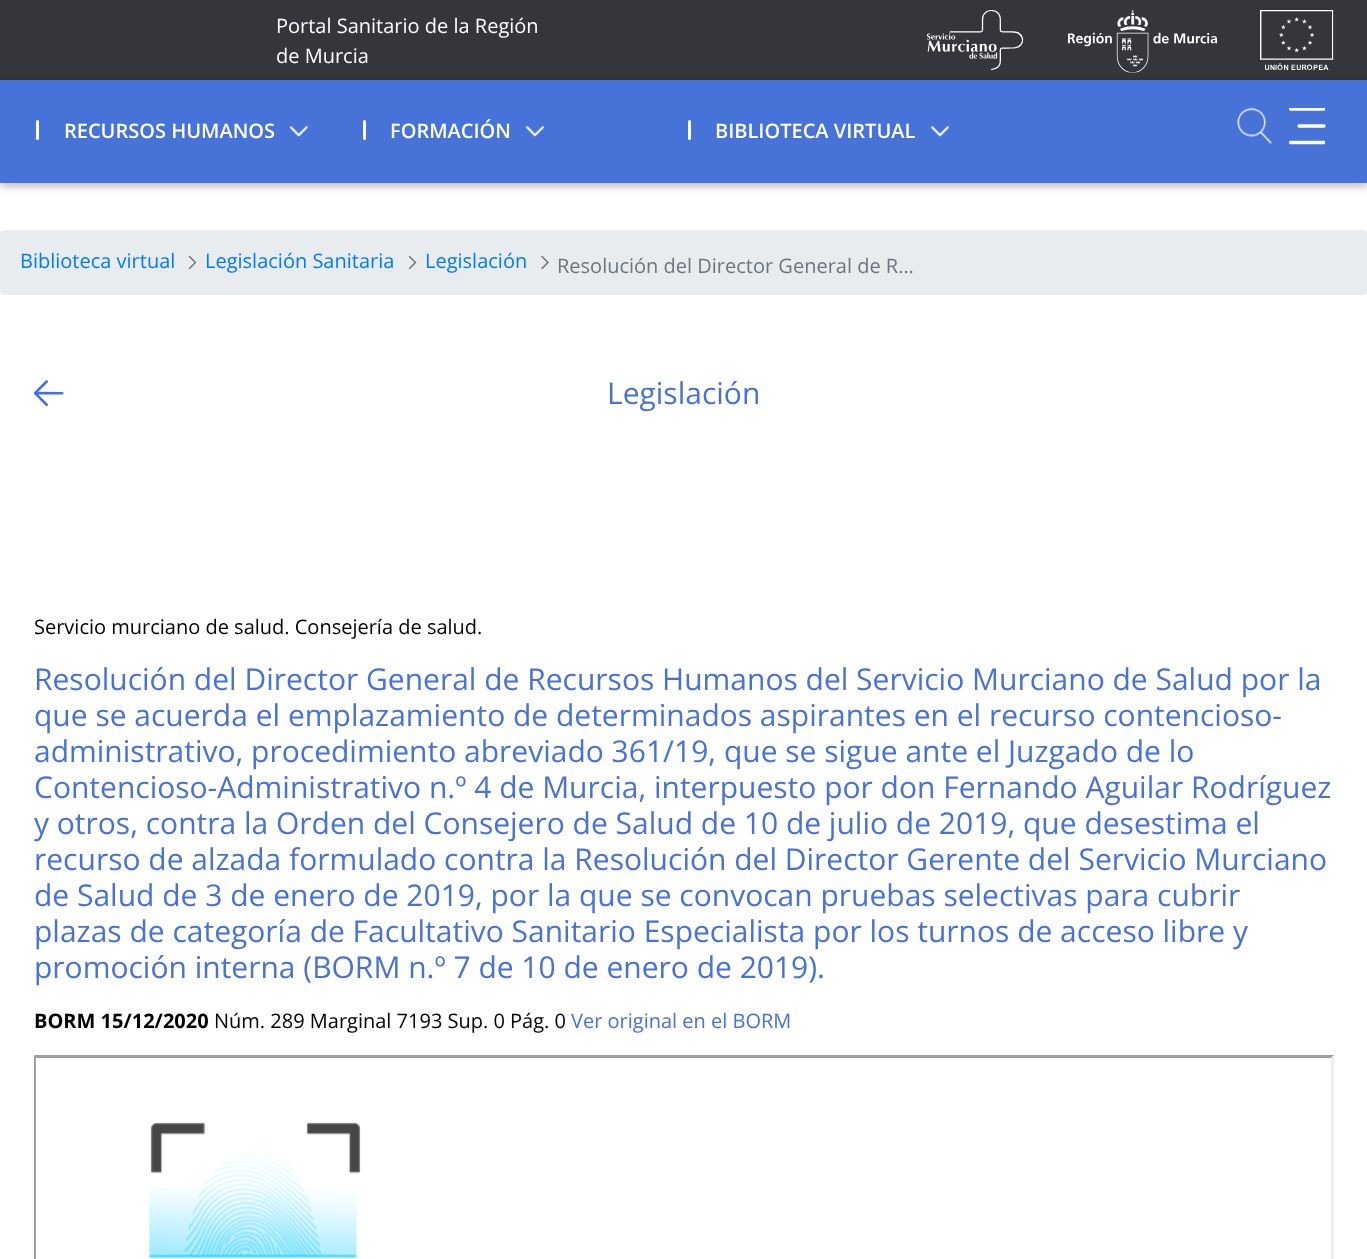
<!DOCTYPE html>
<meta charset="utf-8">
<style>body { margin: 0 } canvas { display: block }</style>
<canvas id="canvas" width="1367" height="1259"></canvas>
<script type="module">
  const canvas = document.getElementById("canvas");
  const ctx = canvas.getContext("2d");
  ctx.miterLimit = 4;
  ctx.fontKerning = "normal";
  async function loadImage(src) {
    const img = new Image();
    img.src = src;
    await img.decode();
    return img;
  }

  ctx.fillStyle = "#ffffff";
  ctx.fillRect(0, 0, 1367, 1259);
  ctx.fillStyle = "#35363b";
  ctx.fillRect(0, 0, 1367, 80);
  ctx.font = "20px Open Sans";
  ctx.fillStyle = "#ffffff";
  ctx.fillText("Portal Sanitario de la Región", 276, 33);
  ctx.fillText("de Murcia", 276, 63);
  ctx.drawImage(await loadImage("img1.png"), 926, 10, 98, 60);
  ctx.drawImage(await loadImage("img2.png"), 1068, 10, 149, 63);
  ctx.drawImage(await loadImage("img3.png"), 1260, 10, 74, 60);
  ctx.fillStyle = "rgba(0, 0, 0, 0.29)";
  ctx.filter = "blur(4px)";
  ctx.beginPath();
  ctx.rect(0, 84, 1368, 102);
  ctx.fill();
  ctx.filter = "none";
  ctx.fillStyle = "#4772d8";
  ctx.fillRect(0, 80, 1367, 103);
  ctx.fillStyle = "#ffffff";
  ctx.beginPath();
  ctx.roundRect(36, 120, 3, 20, 1.5);
  ctx.fill();
  ctx.font = "600 20px Open Sans";
  ctx.fillText("RECURSOS HUMANOS", 64, 138);
  ctx.drawImage(await loadImage("img4.png"), 289, 126, 19, 11);
  ctx.beginPath();
  ctx.roundRect(363, 120, 3, 20, 1.5);
  ctx.fill();
  ctx.fillText("FORMACIÓN", 390, 138);
  ctx.drawImage(await loadImage("img5.png"), 525, 126, 19, 11);
  ctx.beginPath();
  ctx.roundRect(688, 120, 3, 20, 1.5);
  ctx.fill();
  ctx.fillText("BIBLIOTECA VIRTUAL", 715, 138);
  ctx.drawImage(await loadImage("img5.png"), 930, 126, 19, 11);
  ctx.drawImage(await loadImage("img6.png"), 1237, 107, 36, 37);
  ctx.save();
  ctx.beginPath();
  ctx.rect(1289, 108, 36, 37);
  ctx.clip();
  ctx.beginPath();
  ctx.moveTo(1290.5, 109);
  ctx.lineTo(1324, 109);
  ctx.strokeStyle = "#ffffff";
  ctx.lineWidth = 3.3;
  ctx.lineCap = "round";
  ctx.stroke();
  ctx.restore();
  ctx.beginPath();
  ctx.moveTo(1299, 126);
  ctx.lineTo(1324, 126);
  ctx.strokeStyle = "#ffffff";
  ctx.lineWidth = 3.3;
  ctx.lineCap = "round";
  ctx.stroke();
  ctx.save();
  ctx.beginPath();
  ctx.rect(1289, 108, 36, 37);
  ctx.clip();
  ctx.beginPath();
  ctx.moveTo(1290.5, 142.5);
  ctx.lineTo(1324, 142.5);
  ctx.stroke();
  ctx.restore();
  ctx.fillStyle = "#e9ecef";
  ctx.beginPath();
  ctx.roundRect(0, 230, 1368, 65, 5);
  ctx.fill();
  ctx.font = "20px Open Sans";
  ctx.fillStyle = "#007bff";
  ctx.fillText("Biblioteca virtual", 20, 268);
  ctx.drawImage(await loadImage("img7.png"), 188, 255, 9, 15);
  ctx.fillText("Legislación Sanitaria", 205, 268);
  ctx.drawImage(await loadImage("img7.png"), 408, 255, 9, 15);
  ctx.fillText("Legislación", 425, 268);
  ctx.drawImage(await loadImage("img8.png"), 541, 256, 8, 13);
  ctx.fillStyle = "#6c757d";
  ctx.fillText("Resolución del Director General de R…", 557, 273);
  ctx.drawImage(await loadImage("img9.png"), 34, 380, 30, 26);
  ctx.font = "30px Open Sans";
  ctx.fillStyle = "#4772d8";
  ctx.fillText("Legislación", 607, 404);
  ctx.font = "20px Open Sans";
  ctx.fillStyle = "#000000";
  ctx.fillText("Servicio murciano de salud. Consejería de salud.", 34, 634);
  ctx.font = "30px Open Sans";
  ctx.fillStyle = "#4772d8";
  ctx.fillText("Resolución del Director General de Recursos Humanos del Servicio Murciano de Salud por la", 34, 690);
  ctx.fillText("que se acuerda el emplazamiento de determinados aspirantes en el recurso contencioso-", 34, 726);
  ctx.fillText("administrativo, procedimiento abreviado 361/19, que se sigue ante el Juzgado de lo", 34, 762);
  ctx.fillText("Contencioso-Administrativo n.º 4 de Murcia, interpuesto por don Fernando Aguilar Rodríguez", 34, 798);
  ctx.fillText("y otros, contra la Orden del Consejero de Salud de 10 de julio de 2019, que desestima el", 34, 834);
  ctx.fillText("recurso de alzada formulado contra la Resolución del Director Gerente del Servicio Murciano", 34, 870);
  ctx.fillText("de Salud de 3 de enero de 2019, por la que se convocan pruebas selectivas para cubrir", 34, 906);
  ctx.fillText("plazas de categoría de Facultativo Sanitario Especialista por los turnos de acceso libre y", 34, 942);
  ctx.fillText("promoción interna (BORM n.º 7 de 10 de enero de 2019).", 34, 978);
  ctx.font = "bold 20px Open Sans";
  ctx.fillStyle = "#000000";
  ctx.fillText("BORM 15/12/2020", 34, 1028);
  ctx.font = "20px Open Sans";
  ctx.fillText("Núm. 289 Marginal 7193 Sup. 0 Pág. 0", 214, 1028);
  ctx.fillStyle = "#4772d8";
  ctx.fillText("Ver original en el BORM", 571, 1028);
  ctx.fillStyle = "#9f9f9f";
  ctx.beginPath();
  ctx.moveTo(34, 1055);
  ctx.lineTo(1334, 1055);
  ctx.lineTo(1331, 1058);
  ctx.lineTo(36, 1058);
  ctx.closePath();
  ctx.fill();
  ctx.beginPath();
  ctx.moveTo(34, 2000);
  ctx.lineTo(34, 1055);
  ctx.lineTo(36, 1058);
  ctx.lineTo(36, 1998);
  ctx.closePath();
  ctx.fill();
  ctx.drawImage(await loadImage("img10.png"), 148, 1122, 213, 137);
  ctx.fillStyle = "#eeeeee";
  ctx.beginPath();
  ctx.moveTo(1334, 1055);
  ctx.lineTo(1334, 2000);
  ctx.lineTo(1331, 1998);
  ctx.lineTo(1331, 1058);
  ctx.closePath();
  ctx.fill();
</script>
